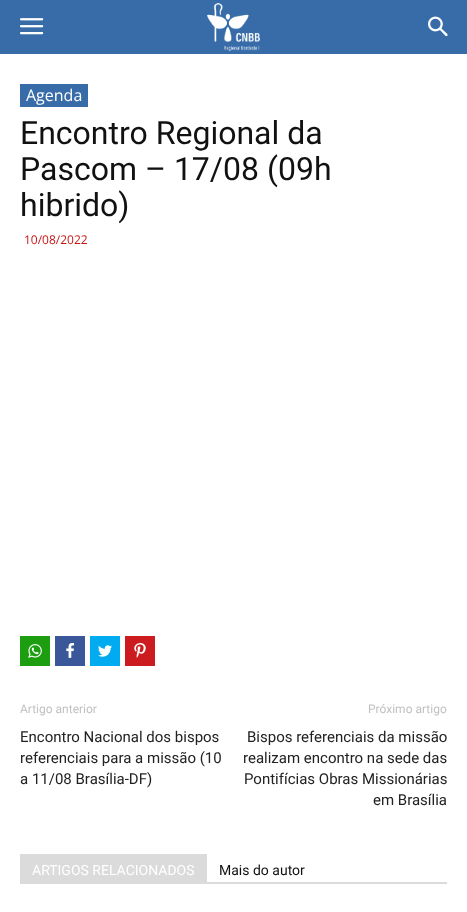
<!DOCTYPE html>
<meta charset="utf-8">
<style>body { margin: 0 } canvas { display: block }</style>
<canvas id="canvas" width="467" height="912"></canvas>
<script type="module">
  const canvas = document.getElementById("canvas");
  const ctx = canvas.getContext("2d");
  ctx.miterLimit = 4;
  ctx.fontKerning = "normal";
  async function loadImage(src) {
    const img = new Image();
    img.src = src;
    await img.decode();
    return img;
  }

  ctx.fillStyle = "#ffffff";
  ctx.fillRect(0, 0, 467, 912);
  ctx.fillStyle = "#376ca9";
  ctx.fillRect(0, 0, 467, 54);
  ctx.drawImage(await loadImage("img1.png"), 20, 18, 24, 17);
  ctx.drawImage(await loadImage("img2.png"), 207, 3, 53, 48);
  ctx.drawImage(await loadImage("img3.png"), 428, 16, 20, 21);
  ctx.fillRect(20, 84, 68, 23);
  ctx.font = "16px Open Sans";
  ctx.fillStyle = "#ffffff";
  ctx.fillText("Agenda", 26, 101);
  ctx.font = "32px Roboto";
  ctx.fillStyle = "#111111";
  ctx.fillText("Encontro Regional da", 20, 144);
  ctx.fillText("Pascom – 17/08 (09h", 20, 180);
  ctx.fillText("hibrido)", 20, 216);
  ctx.font = "12px Open Sans";
  ctx.fillStyle = "#c71313";
  ctx.fillText("10/08/2022", 24, 244);
  ctx.fillStyle = "#1d9e11";
  ctx.fillRect(20, 636, 30, 30);
  ctx.drawImage(await loadImage("img4.png"), 28, 644, 14, 14);
  ctx.fillStyle = "#3a579a";
  ctx.fillRect(55, 636, 30, 30);
  ctx.drawImage(await loadImage("img5.png"), 66, 643, 8, 15);
  ctx.fillStyle = "#00abf0";
  ctx.fillRect(90, 636, 30, 30);
  ctx.drawImage(await loadImage("img6.png"), 98, 645, 14, 12);
  ctx.fillStyle = "#cd1c1f";
  ctx.fillRect(125, 636, 30, 30);
  ctx.drawImage(await loadImage("img7.png"), 134, 643, 12, 15);
  ctx.font = "12px Roboto";
  ctx.fillStyle = "#c1c1c1";
  ctx.fillText("Artigo anterior", 20, 713);
  ctx.font = "15px Roboto";
  ctx.fillStyle = "#222222";
  ctx.fillText("Encontro Nacional dos bispos", 20, 742);
  ctx.fillText("referenciais para a missão (10", 20, 763);
  ctx.fillText("a 11/08 Brasília-DF)", 20, 784);
  ctx.font = "12px Roboto";
  ctx.fillStyle = "#c1c1c1";
  ctx.fillText("Próximo artigo", 368, 713);
  ctx.font = "15px Roboto";
  ctx.fillStyle = "#222222";
  ctx.fillText("Bispos referenciais da missão", 247, 742);
  ctx.fillText("realizam encontro na sede das", 243, 763);
  ctx.fillText("Pontifícias Obras Missionárias", 244, 784);
  ctx.fillText("em Brasília", 373, 805);
  ctx.fillStyle = "#dbdbdb";
  ctx.fillRect(20, 882, 427, 2);
  ctx.fillRect(20, 854, 187, 28);
  ctx.font = "14px Roboto";
  ctx.fillStyle = "#ffffff";
  ctx.fillText("ARTIGOS RELACIONADOS", 32, 875);
  ctx.fillStyle = "#111111";
  ctx.fillText("Mais do autor", 219, 875);
</script>
